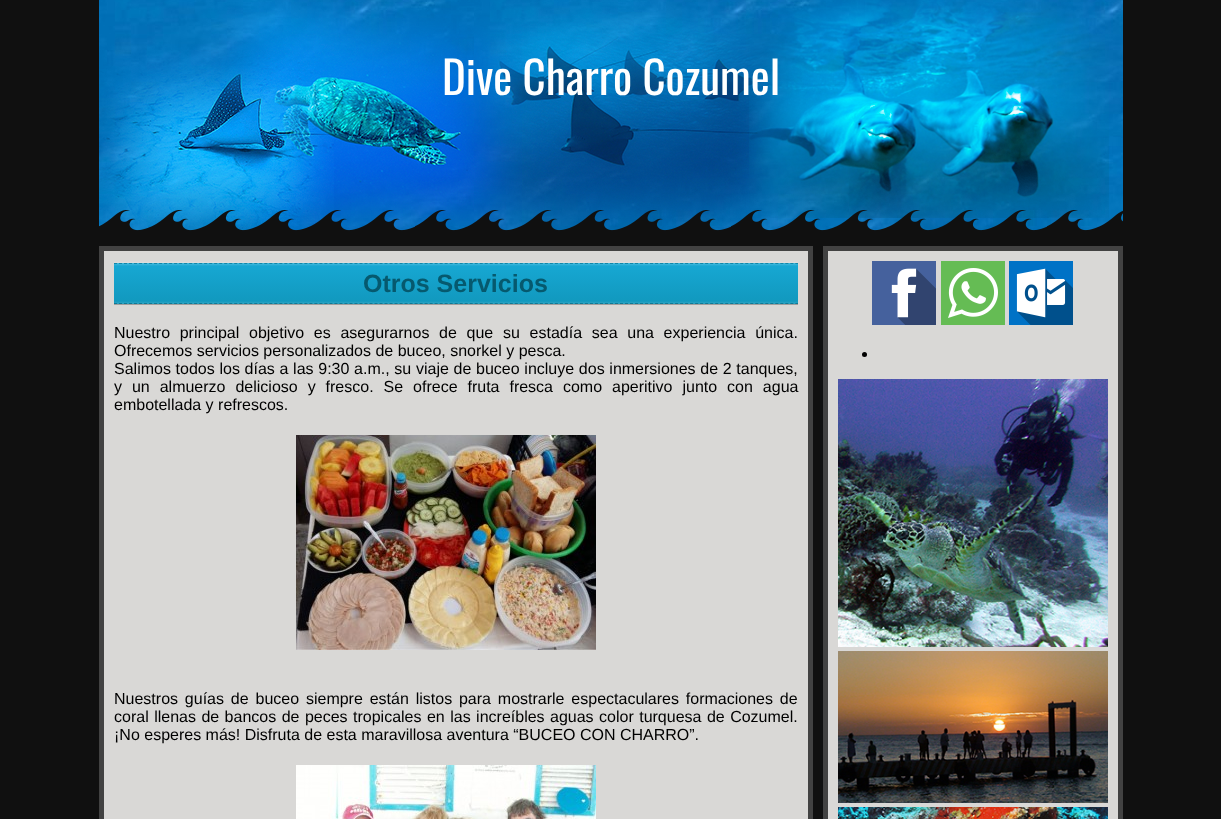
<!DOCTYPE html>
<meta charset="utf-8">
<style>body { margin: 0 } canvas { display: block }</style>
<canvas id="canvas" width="1221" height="819"></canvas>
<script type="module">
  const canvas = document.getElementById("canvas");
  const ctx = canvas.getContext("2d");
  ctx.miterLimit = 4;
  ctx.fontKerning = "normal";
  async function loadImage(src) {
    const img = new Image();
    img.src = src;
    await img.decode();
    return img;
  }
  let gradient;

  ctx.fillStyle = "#101010";
  ctx.fillRect(0, 0, 1221, 819);
  ctx.drawImage(await loadImage("img1.png"), 99, 0, 1024, 231);
  ctx.drawImage(await loadImage("img2.png"), 99, 0, 1010, 231);
  ctx.font = "45px Oswald";
  ctx.fillStyle = "#ffffff";
  ctx.fillText("Dive Charro Cozumel", 442, 95);
  ctx.drawImage(await loadImage("img3.png"), 99, 210, 1024, 26);
  ctx.fillStyle = "#d9d8d6";
  ctx.beginPath();
  ctx.rect(101.5, 248.5, 709, 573);
  ctx.fill();
  ctx.strokeStyle = "#424242";
  ctx.lineWidth = 5;
  ctx.stroke();
  ctx.fillStyle = "rgba(0, 0, 0, 0.3)";
  ctx.filter = "blur(0.5px)";
  ctx.beginPath();
  ctx.rect(114, 264, 684, 41);
  ctx.fill();
  ctx.filter = "none";
  gradient = ctx.createLinearGradient(456, 263, 456, 304);
  gradient.addColorStop(0, "#17a8d4");
  gradient.addColorStop(1, "#1198bd");
  ctx.fillStyle = gradient;
  ctx.fillRect(114, 263, 684, 41);
  ctx.fillStyle = "rgba(255, 255, 255, 0.5)";
  ctx.filter = "blur(1px)";
  ctx.beginPath();
  ctx.rect(114, 263, 684, 1);
  ctx.fill();
  ctx.filter = "none";
  ctx.beginPath();
  ctx.moveTo(114, 263.5);
  ctx.lineTo(798, 263.5);
  ctx.strokeStyle = "#1286aa";
  ctx.lineWidth = 1;
  ctx.setLineDash([3, 2.01]);
  ctx.stroke();
  ctx.font = "bold 25px Liberation Sans";
  ctx.fillStyle = "#06596e";
  ctx.fillText("Otros Servicios", 363, 292);
  ctx.fillStyle = "rgba(255, 255, 255, 0.3)";
  ctx.filter = "blur(1px)";
  ctx.beginPath();
  ctx.rect(114, 303, 684, 1);
  ctx.fill();
  ctx.filter = "none";
  ctx.beginPath();
  ctx.moveTo(114, 303.5);
  ctx.lineTo(798, 303.5);
  ctx.strokeStyle = "#0e7a97";
  ctx.stroke();
  ctx.wordSpacing = "5.25px";
  ctx.font = "16px Liberation Sans";
  ctx.fillStyle = "#000000";
  ctx.fillText("Nuestro principal objetivo es asegurarnos de que su estadía sea una experiencia única.", 114, 338);
  ctx.wordSpacing = "0px";
  ctx.fillText("Ofrecemos servicios personalizados de buceo, snorkel y pesca.", 114, 356);
  ctx.wordSpacing = "0.25px";
  ctx.fillText("Salimos todos los días a las 9:30 a.m., su viaje de buceo incluye dos inmersiones de 2 tanques,", 114, 374);
  ctx.wordSpacing = "5.5px";
  ctx.fillText("y un almuerzo delicioso y fresco. Se ofrece fruta fresca como aperitivo junto con agua", 114, 392);
  ctx.wordSpacing = "0px";
  ctx.fillText("embotellada y refrescos.", 114, 410);
  ctx.drawImage(await loadImage("img4.png"), 296, 435, 300, 215);
  ctx.wordSpacing = "2.4px";
  ctx.fillText("Nuestros guías de buceo siempre están listos para mostrarle espectaculares formaciones de", 114, 704);
  ctx.wordSpacing = "1px";
  ctx.fillText("coral llenas de bancos de peces tropicales en las increíbles aguas color turquesa de Cozumel.", 114, 722);
  ctx.wordSpacing = "0px";
  ctx.fillText("¡No esperes más! Disfruta de esta maravillosa aventura “BUCEO CON CHARRO”.", 114, 740);
  ctx.drawImage(await loadImage("img5.png"), 296, 765, 300, 54);
  ctx.fillStyle = "#d9d8d6";
  ctx.beginPath();
  ctx.rect(825.5, 248.5, 295, 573);
  ctx.fill();
  ctx.strokeStyle = "#424242";
  ctx.lineWidth = 5;
  ctx.setLineDash([]);
  ctx.stroke();
  ctx.drawImage(await loadImage("img6.png"), 872, 261, 64, 64);
  ctx.drawImage(await loadImage("img7.png"), 941, 261, 64, 64);
  ctx.drawImage(await loadImage("img8.png"), 1009, 261, 64, 64);
  ctx.fillStyle = "#000000";
  ctx.beginPath();
  ctx.arc(864.5, 354.5, 2.5, 0, Math.PI * 2);
  ctx.fill();
  ctx.drawImage(await loadImage("img9.png"), 838, 379, 270, 268);
  ctx.drawImage(await loadImage("img10.png"), 838, 651, 270, 152);
  ctx.drawImage(await loadImage("img11.png"), 838, 807, 270, 12);
</script>
